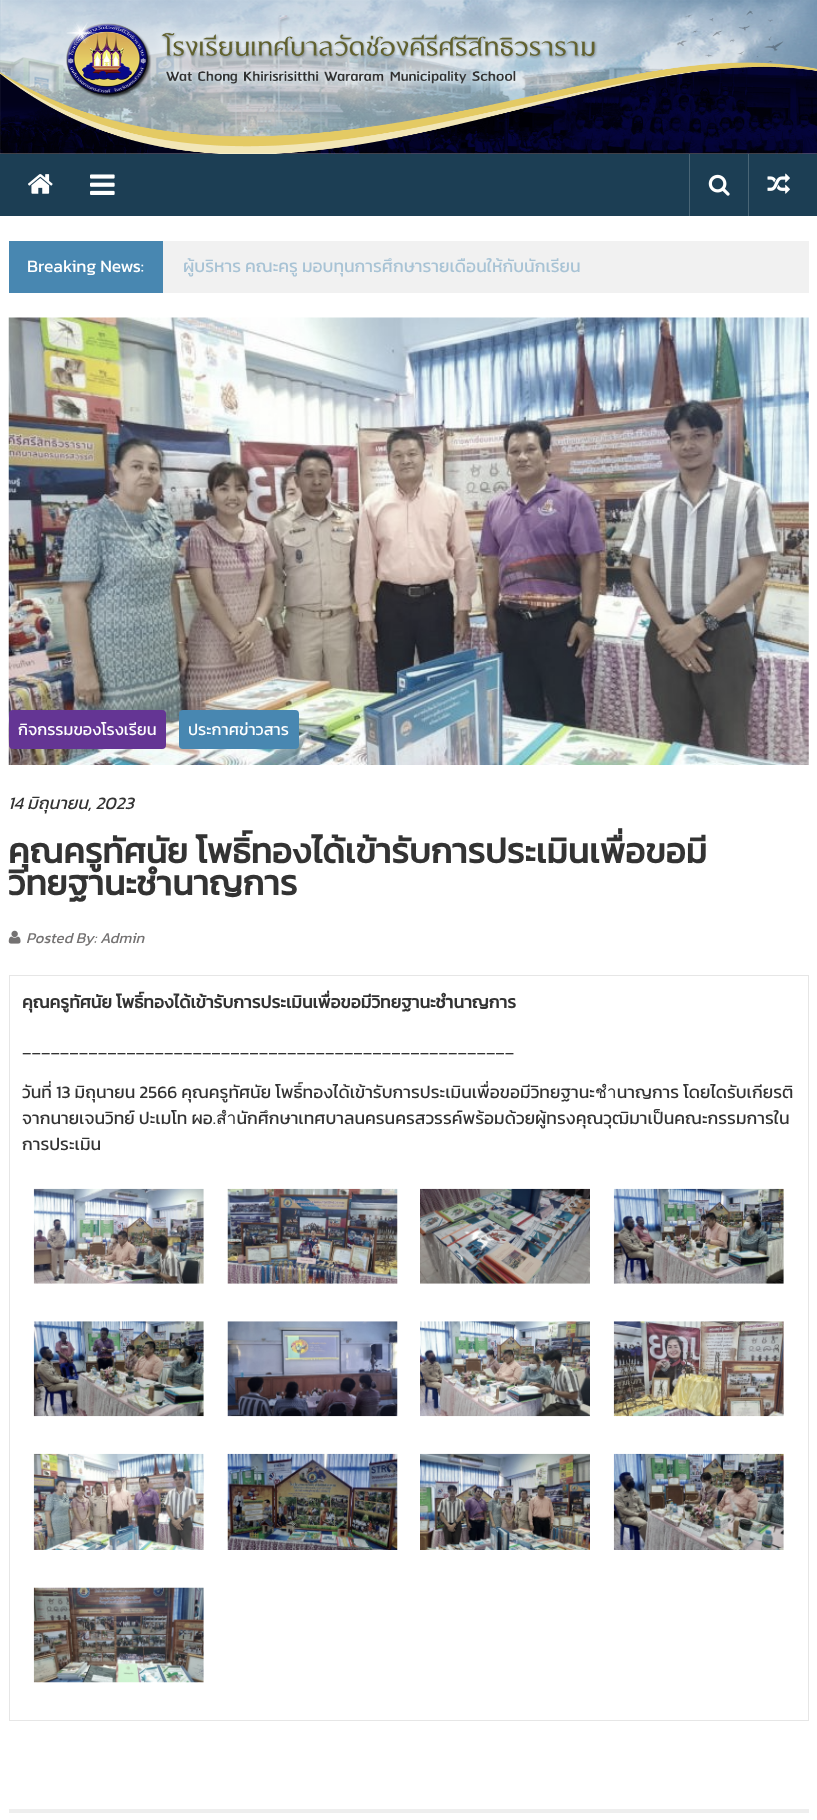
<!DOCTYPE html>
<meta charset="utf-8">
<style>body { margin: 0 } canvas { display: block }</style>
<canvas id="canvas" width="817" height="1820"></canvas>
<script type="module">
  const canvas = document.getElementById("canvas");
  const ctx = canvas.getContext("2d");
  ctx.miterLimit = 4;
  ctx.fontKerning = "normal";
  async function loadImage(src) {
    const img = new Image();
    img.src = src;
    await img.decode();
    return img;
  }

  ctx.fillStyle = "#ffffff";
  ctx.fillRect(0, 0, 817, 1820);
  ctx.drawImage(await loadImage("img1.png"), 0, 0, 817, 154);
  ctx.fillStyle = "#1c3e54";
  ctx.fillRect(0, 154, 817, 62);
  ctx.drawImage(await loadImage("img2.png"), 28, 174, 25, 20);
  ctx.drawImage(await loadImage("img3.png"), 90, 174, 25, 21);
  ctx.fillStyle = "#496576";
  ctx.fillRect(689, 154, 1, 62);
  ctx.drawImage(await loadImage("img4.png"), 708, 174, 22, 22);
  ctx.fillRect(748, 154, 1, 62);
  ctx.drawImage(await loadImage("img5.png"), 767, 173, 23, 21);
  ctx.fillStyle = "#f1f1f1";
  ctx.fillRect(163, 241, 646, 52);
  ctx.fillStyle = "#4887b1";
  ctx.fillRect(9, 241, 154, 52);
  ctx.font = "17.5px Kanit";
  ctx.fillStyle = "#ffffff";
  ctx.fillText("Breaking News:", 27, 272);
  ctx.fillStyle = "#a8c3d5";
  ctx.fillText("ผู้บริหาร คณะครู มอบทุนการศึกษารายเดือนให้กับนักเรียน", 183, 272);
  ctx.fillStyle = "#eeeeee";
  ctx.fillRect(9, 1809, 800, 4);
  ctx.drawImage(await loadImage("img6.png"), 8, 317, 801, 448);
  ctx.fillStyle = "#643594";
  ctx.beginPath();
  ctx.roundRect(9, 710, 157, 39, 4);
  ctx.fill();
  ctx.font = "16.25px Kanit";
  ctx.fillStyle = "#ffffff";
  ctx.fillText("กิจกรรมของโรงเรียน", 18, 735);
  ctx.fillStyle = "#4887b1";
  ctx.beginPath();
  ctx.roundRect(179, 710, 120, 39, 4);
  ctx.fill();
  ctx.fillStyle = "#ffffff";
  ctx.fillText("ประกาศข่าวสาร", 188, 735);
  ctx.font = "italic 17.5px Kanit";
  ctx.fillStyle = "#333333";
  ctx.fillText("14 มิถุนายน, 2023", 8, 809);
  ctx.font = "bold 35px Kanit";
  ctx.fillText("คุณครูทัศนัย โพธิ์ทองได้เข้ารับการประเมินเพื่อขอมี", 8, 863);
  ctx.fillText("วิทยฐานะชำนาญการ", 8, 895);
  ctx.drawImage(await loadImage("img7.png"), 8, 930, 13, 14);
  ctx.font = "italic 15px Kanit";
  ctx.fillStyle = "#747272";
  ctx.fillText("Posted By: Admin", 26, 943);
  ctx.strokeStyle = "#e6e6e6";
  ctx.strokeRect(9.5, 975.5, 799, 745);
  ctx.font = "bold 17.5px Kanit";
  ctx.fillStyle = "#333333";
  ctx.fillText("คุณครูทัศนัย โพธิ์ทองได้เข้ารับการประเมินเพื่อขอมีวิทยฐานะชำนาญการ", 22, 1008);
  ctx.font = "17.5px Kanit";
  ctx.fillText("____________________________________________________", 22, 1053);
  ctx.fillText("วันที่ 13 มิถุนายน 2566 คุณครูทัศนัย โพธิ์ทองได้เข้ารับการประเมินเพื่อขอมีวิทยฐานะชำนาญการ โดยไดรับเกียรติ", 22, 1098);
  ctx.fillText("จากนายเจนวิทย์ ปะเมโท ผอ.สำนักศึกษาเทศบาลนครนครสวรรค์พร้อมด้วยผู้ทรงคุณวุฒิมาเป็นคณะกรรมการใน", 22, 1124);
  ctx.fillText("การประเมิน", 22, 1150);
  ctx.drawImage(await loadImage("img8.png"), 33, 1188, 171, 96);
  ctx.drawImage(await loadImage("img9.png"), 227, 1188, 171, 96);
  ctx.drawImage(await loadImage("img10.png"), 420, 1188, 170, 96);
  ctx.drawImage(await loadImage("img11.png"), 613, 1188, 171, 96);
  ctx.drawImage(await loadImage("img12.png"), 33, 1321, 171, 96);
  ctx.drawImage(await loadImage("img13.png"), 227, 1321, 171, 96);
  ctx.drawImage(await loadImage("img14.png"), 420, 1321, 170, 96);
  ctx.drawImage(await loadImage("img15.png"), 613, 1321, 171, 96);
  ctx.drawImage(await loadImage("img16.png"), 33, 1453, 171, 97);
  ctx.drawImage(await loadImage("img17.png"), 227, 1453, 171, 97);
  ctx.drawImage(await loadImage("img18.png"), 420, 1453, 170, 97);
  ctx.drawImage(await loadImage("img19.png"), 613, 1453, 171, 97);
  ctx.drawImage(await loadImage("img20.png"), 33, 1587, 171, 96);
</script>
